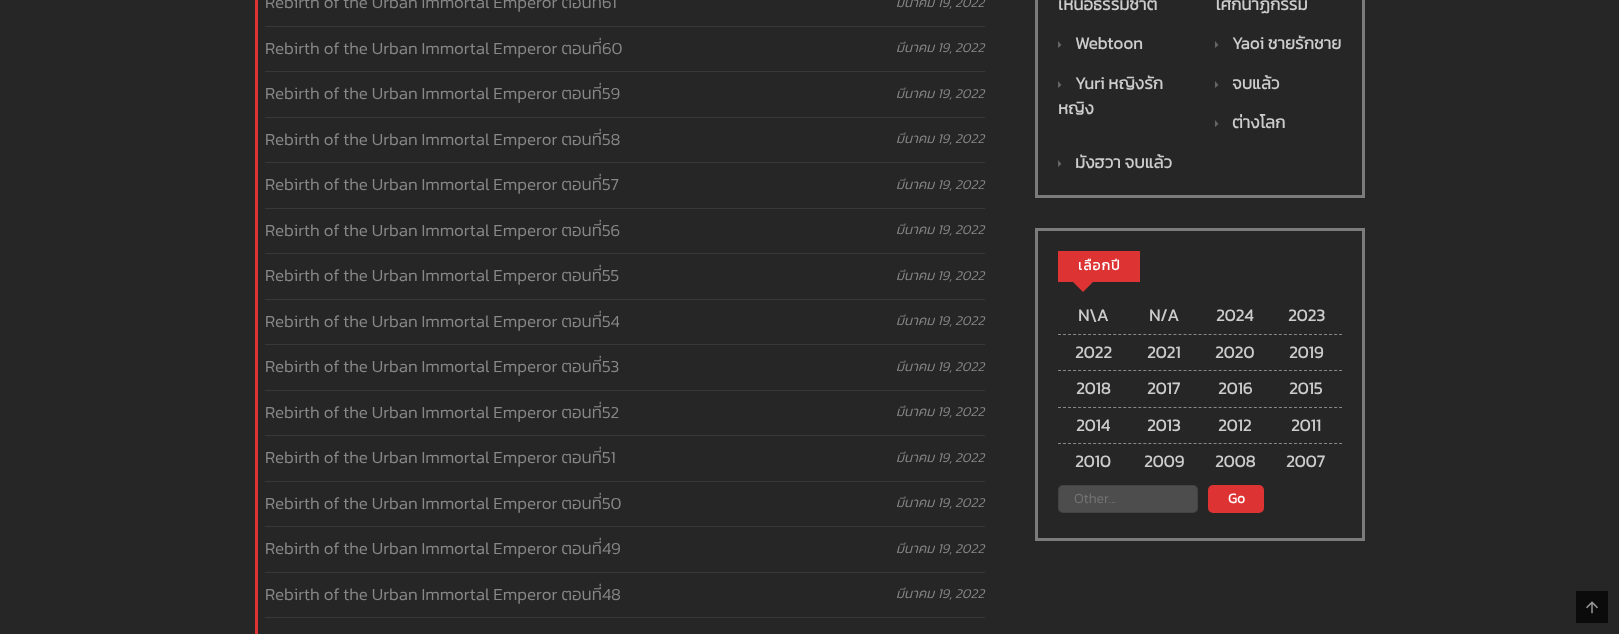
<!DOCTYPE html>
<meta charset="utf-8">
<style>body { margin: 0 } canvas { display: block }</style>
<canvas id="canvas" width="1619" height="634"></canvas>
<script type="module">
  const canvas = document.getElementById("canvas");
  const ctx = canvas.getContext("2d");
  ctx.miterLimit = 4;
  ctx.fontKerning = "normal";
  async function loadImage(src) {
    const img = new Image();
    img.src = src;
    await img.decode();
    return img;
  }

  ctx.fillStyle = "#262626";
  ctx.fillRect(0, 0, 1619, 634);
  ctx.fillStyle = "#dd3333";
  ctx.fillRect(255, 0, 3, 634);
  ctx.font = "300 17px Kanit";
  ctx.fillStyle = "#888888";
  ctx.fillText("Rebirth of the Urban Immortal Emperor ตอนที่61", 265, 8);
  ctx.font = "italic 300 13.5px Kanit";
  ctx.fillText("มีนาคม 19, 2022", 896, 7);
  ctx.fillStyle = "#383838";
  ctx.fillRect(265, 26, 720, 1);
  ctx.font = "300 17px Kanit";
  ctx.fillStyle = "#888888";
  ctx.fillText("Rebirth of the Urban Immortal Emperor ตอนที่60", 265, 54);
  ctx.font = "italic 300 13.5px Kanit";
  ctx.fillText("มีนาคม 19, 2022", 896, 52);
  ctx.fillStyle = "#383838";
  ctx.fillRect(265, 71, 720, 1);
  ctx.font = "300 17px Kanit";
  ctx.fillStyle = "#888888";
  ctx.fillText("Rebirth of the Urban Immortal Emperor ตอนที่59", 265, 99);
  ctx.font = "italic 300 13.5px Kanit";
  ctx.fillText("มีนาคม 19, 2022", 896, 98);
  ctx.fillStyle = "#383838";
  ctx.fillRect(265, 117, 720, 1);
  ctx.font = "300 17px Kanit";
  ctx.fillStyle = "#888888";
  ctx.fillText("Rebirth of the Urban Immortal Emperor ตอนที่58", 265, 145);
  ctx.font = "italic 300 13.5px Kanit";
  ctx.fillText("มีนาคม 19, 2022", 896, 143);
  ctx.fillStyle = "#383838";
  ctx.fillRect(265, 162, 720, 1);
  ctx.font = "300 17px Kanit";
  ctx.fillStyle = "#888888";
  ctx.fillText("Rebirth of the Urban Immortal Emperor ตอนที่57", 265, 190);
  ctx.font = "italic 300 13.5px Kanit";
  ctx.fillText("มีนาคม 19, 2022", 896, 189);
  ctx.fillStyle = "#383838";
  ctx.fillRect(265, 208, 720, 1);
  ctx.font = "300 17px Kanit";
  ctx.fillStyle = "#888888";
  ctx.fillText("Rebirth of the Urban Immortal Emperor ตอนที่56", 265, 236);
  ctx.font = "italic 300 13.5px Kanit";
  ctx.fillText("มีนาคม 19, 2022", 896, 234);
  ctx.fillStyle = "#383838";
  ctx.fillRect(265, 253, 720, 1);
  ctx.font = "300 17px Kanit";
  ctx.fillStyle = "#888888";
  ctx.fillText("Rebirth of the Urban Immortal Emperor ตอนที่55", 265, 281);
  ctx.font = "italic 300 13.5px Kanit";
  ctx.fillText("มีนาคม 19, 2022", 896, 280);
  ctx.fillStyle = "#383838";
  ctx.fillRect(265, 299, 720, 1);
  ctx.font = "300 17px Kanit";
  ctx.fillStyle = "#888888";
  ctx.fillText("Rebirth of the Urban Immortal Emperor ตอนที่54", 265, 327);
  ctx.font = "italic 300 13.5px Kanit";
  ctx.fillText("มีนาคม 19, 2022", 896, 325);
  ctx.fillStyle = "#383838";
  ctx.fillRect(265, 344, 720, 1);
  ctx.font = "300 17px Kanit";
  ctx.fillStyle = "#888888";
  ctx.fillText("Rebirth of the Urban Immortal Emperor ตอนที่53", 265, 372);
  ctx.font = "italic 300 13.5px Kanit";
  ctx.fillText("มีนาคม 19, 2022", 896, 371);
  ctx.fillStyle = "#383838";
  ctx.fillRect(265, 390, 720, 1);
  ctx.font = "300 17px Kanit";
  ctx.fillStyle = "#888888";
  ctx.fillText("Rebirth of the Urban Immortal Emperor ตอนที่52", 265, 418);
  ctx.font = "italic 300 13.5px Kanit";
  ctx.fillText("มีนาคม 19, 2022", 896, 416);
  ctx.fillStyle = "#383838";
  ctx.fillRect(265, 435, 720, 1);
  ctx.font = "300 17px Kanit";
  ctx.fillStyle = "#888888";
  ctx.fillText("Rebirth of the Urban Immortal Emperor ตอนที่51", 265, 463);
  ctx.font = "italic 300 13.5px Kanit";
  ctx.fillText("มีนาคม 19, 2022", 896, 462);
  ctx.fillStyle = "#383838";
  ctx.fillRect(265, 481, 720, 1);
  ctx.font = "300 17px Kanit";
  ctx.fillStyle = "#888888";
  ctx.fillText("Rebirth of the Urban Immortal Emperor ตอนที่50", 265, 509);
  ctx.font = "italic 300 13.5px Kanit";
  ctx.fillText("มีนาคม 19, 2022", 896, 507);
  ctx.fillStyle = "#383838";
  ctx.fillRect(265, 526, 720, 1);
  ctx.font = "300 17px Kanit";
  ctx.fillStyle = "#888888";
  ctx.fillText("Rebirth of the Urban Immortal Emperor ตอนที่49", 265, 554);
  ctx.font = "italic 300 13.5px Kanit";
  ctx.fillText("มีนาคม 19, 2022", 896, 553);
  ctx.fillStyle = "#383838";
  ctx.fillRect(265, 572, 720, 1);
  ctx.font = "300 17px Kanit";
  ctx.fillStyle = "#888888";
  ctx.fillText("Rebirth of the Urban Immortal Emperor ตอนที่48", 265, 600);
  ctx.font = "italic 300 13.5px Kanit";
  ctx.fillText("มีนาคม 19, 2022", 896, 598);
  ctx.fillStyle = "#383838";
  ctx.fillRect(265, 617, 720, 1);
  ctx.strokeStyle = "#7b7b7b";
  ctx.lineWidth = 3;
  ctx.strokeRect(1036.5, -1.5, 327, 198);
  ctx.font = "bold 17px Kanit";
  ctx.fillStyle = "#cccccc";
  ctx.fillText("เหนือธรรมชาติ", 1058, 10);
  ctx.fillText("โศกนาฏกรรม", 1215, 10);
  ctx.fillStyle = "#666666";
  ctx.beginPath();
  ctx.moveTo(1058, 41);
  ctx.lineTo(1061.5, 45);
  ctx.lineTo(1058, 48);
  ctx.closePath();
  ctx.fill();
  ctx.fillStyle = "#cccccc";
  ctx.fillText("Webtoon", 1075, 49);
  ctx.fillStyle = "#666666";
  ctx.beginPath();
  ctx.moveTo(1215, 41);
  ctx.lineTo(1218.5, 45);
  ctx.lineTo(1215, 48);
  ctx.closePath();
  ctx.fill();
  ctx.fillStyle = "#cccccc";
  ctx.fillText("Yaoi ชายรักชาย", 1232, 49);
  ctx.fillStyle = "#666666";
  ctx.beginPath();
  ctx.moveTo(1058, 81);
  ctx.lineTo(1061.5, 85);
  ctx.lineTo(1058, 88);
  ctx.closePath();
  ctx.fill();
  ctx.fillStyle = "#cccccc";
  ctx.fillText("Yuri หญิงรัก", 1075, 89);
  ctx.fillText("หญิง", 1058, 114);
  ctx.fillStyle = "#666666";
  ctx.beginPath();
  ctx.moveTo(1215, 81);
  ctx.lineTo(1218.5, 85);
  ctx.lineTo(1215, 88);
  ctx.closePath();
  ctx.fill();
  ctx.fillStyle = "#cccccc";
  ctx.fillText("จบแล้ว", 1232, 89);
  ctx.fillStyle = "#666666";
  ctx.beginPath();
  ctx.moveTo(1215, 120);
  ctx.lineTo(1218.5, 124);
  ctx.lineTo(1215, 127);
  ctx.closePath();
  ctx.fill();
  ctx.fillStyle = "#cccccc";
  ctx.fillText("ต่างโลก", 1232, 128);
  ctx.fillStyle = "#666666";
  ctx.beginPath();
  ctx.moveTo(1058, 160);
  ctx.lineTo(1061.5, 164);
  ctx.lineTo(1058, 167);
  ctx.closePath();
  ctx.fill();
  ctx.fillStyle = "#cccccc";
  ctx.fillText("มังฮวา จบแล้ว", 1075, 168);
  ctx.strokeRect(1036.5, 229.5, 327, 310);
  ctx.fillStyle = "#dd3333";
  ctx.fillRect(1058, 251, 82, 31);
  ctx.letterSpacing = "1px";
  ctx.font = "bold 14px Kanit";
  ctx.fillStyle = "#ffffff";
  ctx.fillText("เลือกปี", 1078, 270);
  ctx.fillStyle = "#dd3333";
  ctx.beginPath();
  ctx.moveTo(1073, 282);
  ctx.lineTo(1093, 282);
  ctx.lineTo(1083, 292);
  ctx.closePath();
  ctx.fill();
  ctx.beginPath();
  ctx.moveTo(1058, 334.5);
  ctx.lineTo(1342, 334.5);
  ctx.strokeStyle = "#888888";
  ctx.lineWidth = 1;
  ctx.setLineDash([3, 2.02]);
  ctx.stroke();
  ctx.letterSpacing = "0px";
  ctx.font = "bold 17px Kanit";
  ctx.fillStyle = "#cccccc";
  ctx.fillText("N\\A", 1078, 321);
  ctx.fillText("N/A", 1149, 321);
  ctx.fillText("2024", 1216, 321);
  ctx.fillText("2023", 1288, 321);
  ctx.beginPath();
  ctx.moveTo(1058, 370.5);
  ctx.lineTo(1342, 370.5);
  ctx.stroke();
  ctx.fillText("2022", 1075, 358);
  ctx.fillText("2021", 1147, 358);
  ctx.fillText("2020", 1215, 358);
  ctx.fillText("2019", 1289, 358);
  ctx.beginPath();
  ctx.moveTo(1058, 407.5);
  ctx.lineTo(1342, 407.5);
  ctx.stroke();
  ctx.fillText("2018", 1076, 394);
  ctx.fillText("2017", 1147, 394);
  ctx.fillText("2016", 1218, 394);
  ctx.fillText("2015", 1289, 394);
  ctx.beginPath();
  ctx.moveTo(1058, 443.5);
  ctx.lineTo(1342, 443.5);
  ctx.stroke();
  ctx.fillText("2014", 1076, 431);
  ctx.fillText("2013", 1147, 431);
  ctx.fillText("2012", 1218, 431);
  ctx.fillText("2011", 1291, 431);
  ctx.fillText("2010", 1075, 467);
  ctx.fillText("2009", 1144, 467);
  ctx.fillText("2008", 1215, 467);
  ctx.fillText("2007", 1286, 467);
  ctx.fillStyle = "#4d4d4d";
  ctx.beginPath();
  ctx.roundRect(1058, 485, 140, 28, 5);
  ctx.fill();
  ctx.beginPath();
  ctx.roundRect(1058.5, 485.5, 139, 27, 4.5);
  ctx.strokeStyle = "rgba(45, 45, 45, 0.3)";
  ctx.setLineDash([]);
  ctx.stroke();
  ctx.font = "300 14px Kanit";
  ctx.fillStyle = "#757575";
  ctx.fillText("Other...", 1074, 503);
  ctx.fillStyle = "#dd3333";
  ctx.beginPath();
  ctx.roundRect(1208, 485, 56, 28, 5);
  ctx.fill();
  ctx.font = "bold 14px Kanit";
  ctx.fillStyle = "#ffffff";
  ctx.fillText("Go", 1228, 503);
  ctx.fillStyle = "#0b0b0b";
  ctx.fillRect(1576, 591, 32, 32);
  ctx.drawImage(await loadImage("img1.png"), 1586, 601, 12, 13);
</script>
